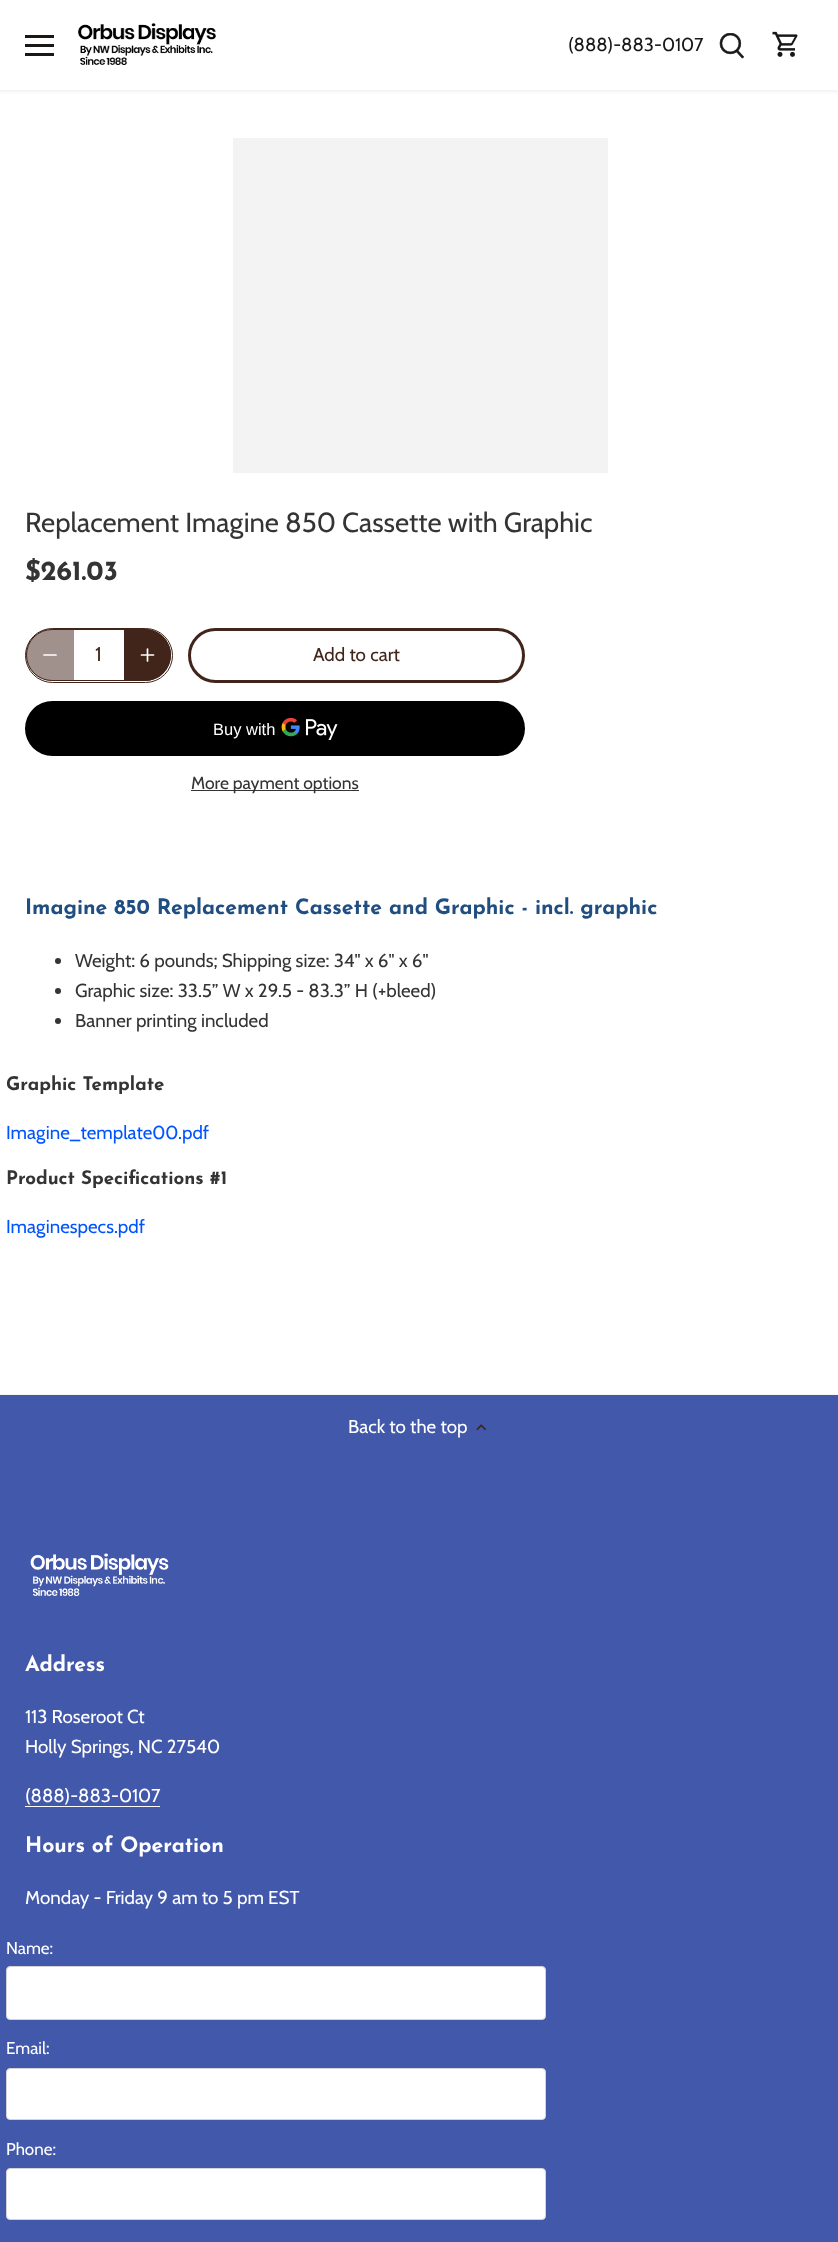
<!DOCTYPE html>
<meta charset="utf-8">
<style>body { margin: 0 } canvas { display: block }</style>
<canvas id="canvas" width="838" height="2242"></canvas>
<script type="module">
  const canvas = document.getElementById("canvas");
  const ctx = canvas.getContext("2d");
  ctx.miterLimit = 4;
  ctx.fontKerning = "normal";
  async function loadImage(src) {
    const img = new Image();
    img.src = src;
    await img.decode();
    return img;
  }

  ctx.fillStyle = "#ffffff";
  ctx.fillRect(0, 0, 838, 2242);
  ctx.fillStyle = "rgba(0, 0, 0, 0.08)";
  ctx.filter = "blur(2px)";
  ctx.beginPath();
  ctx.rect(-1, -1, 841, 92);
  ctx.fill();
  ctx.filter = "none";
  ctx.fillStyle = "#ffffff";
  ctx.fillRect(0, 0, 838, 90);
  ctx.fillStyle = "#191817";
  ctx.fillRect(25, 35, 29, 3);
  ctx.fillRect(25, 44, 29, 3);
  ctx.fillRect(25, 53, 29, 3);
  ctx.drawImage(await loadImage("img1.png"), 78, 23, 138, 42);
  ctx.font = "18.75px Cabin";
  ctx.fillText("(888)-883-0107", 568, 51);
  ctx.drawImage(await loadImage("img2.png"), 719, 33, 26, 26);
  ctx.drawImage(await loadImage("img3.png"), 772, 31, 26, 26);
  ctx.fillStyle = "#f3f3f3";
  ctx.fillRect(233, 138, 375, 335);
  ctx.font = "27.5px Cabin";
  ctx.fillStyle = "#343434";
  ctx.fillText("Replacement Imagine 850 Cassette with Graphic", 25, 532);
  ctx.font = "bold 27.5px Josefin Sans";
  ctx.fillText("$261.03", 25, 580);
  ctx.beginPath();
  ctx.roundRect(26.5, 629.5, 144, 51, 25.5);
  ctx.strokeStyle = "#41241a";
  ctx.stroke();
  ctx.beginPath();
  ctx.roundRect(25.5, 628.5, 147, 54, 27);
  ctx.stroke();
  ctx.fillStyle = "rgba(65, 36, 26, 0.5)";
  ctx.beginPath();
  ctx.roundRect(26, 629, 48, 52, [26, 0, 0, 26]);
  ctx.fill();
  ctx.beginPath();
  ctx.moveTo(44, 655);
  ctx.lineTo(56, 655);
  ctx.strokeStyle = "#ffffff";
  ctx.lineWidth = 1.7;
  ctx.lineCap = "round";
  ctx.lineJoin = "round";
  ctx.stroke();
  ctx.font = "20px Cabin";
  ctx.fillStyle = "#41241a";
  ctx.fillText("1", 95, 661);
  ctx.beginPath();
  ctx.roundRect(124, 629, 47, 52, [0, 26, 26, 0]);
  ctx.fill();
  ctx.beginPath();
  ctx.moveTo(147.5, 649);
  ctx.lineTo(147.5, 661);
  ctx.moveTo(141.5, 655);
  ctx.lineTo(153.5, 655);
  ctx.stroke();
  ctx.beginPath();
  ctx.roundRect(189.5, 629.5, 334, 52, 26);
  ctx.strokeStyle = "#41241a";
  ctx.lineWidth = 3;
  ctx.lineJoin = "miter";
  ctx.stroke();
  ctx.font = "18.75px Cabin";
  ctx.fillText("Add to cart", 313, 661);
  ctx.fillStyle = "#000000";
  ctx.beginPath();
  ctx.roundRect(25, 701, 500, 55, 27.5);
  ctx.fill();
  ctx.font = "16.5px Liberation Sans";
  ctx.fillStyle = "#ffffff";
  ctx.fillText("Buy with", 213, 735);
  ctx.drawImage(await loadImage("img4.png"), 281, 718, 57, 22);
  ctx.fillStyle = "#343434";
  ctx.fillRect(191, 790, 168, 1);
  ctx.font = "17.5px Cabin";
  ctx.fillText("More payment options", 191, 789);
  ctx.font = "bold 21.25px Josefin Sans";
  ctx.fillStyle = "#214e80";
  ctx.fillText("Imagine 850 Replacement Cassette and Graphic - incl. graphic", 25, 914);
  ctx.fillStyle = "#343434";
  ctx.beginPath();
  ctx.arc(58, 961, 3, 0, Math.PI * 2);
  ctx.fill();
  ctx.font = "18.75px Cabin";
  ctx.fillText("Weight: 6 pounds; Shipping size: 34\" x 6\" x 6\"", 75, 967);
  ctx.beginPath();
  ctx.arc(58, 991, 3, 0, Math.PI * 2);
  ctx.fill();
  ctx.fillText("Graphic size: 33.5” W x 29.5 - 83.3” H (+bleed)", 75, 997);
  ctx.beginPath();
  ctx.arc(58, 1021, 3, 0, Math.PI * 2);
  ctx.fill();
  ctx.fillText("Banner printing included", 75, 1027);
  ctx.font = "bold 18.75px Josefin Sans";
  ctx.fillText("Graphic Template", 6, 1090);
  ctx.font = "18.75px Cabin";
  ctx.fillStyle = "#0054ff";
  ctx.fillText("Imagine_template00.pdf", 6, 1139);
  ctx.font = "bold 18.75px Josefin Sans";
  ctx.fillStyle = "#343434";
  ctx.fillText("Product Specifications #1", 6, 1184);
  ctx.font = "18.75px Cabin";
  ctx.fillStyle = "#0054ff";
  ctx.fillText("Imaginespecs.pdf", 6, 1233);
  ctx.fillStyle = "#4258ab";
  ctx.fillRect(0, 1395, 838, 847);
  ctx.fillStyle = "#f5f5f5";
  ctx.fillRect(0, 1394, 838, 1);
  ctx.fillStyle = "#ffffff";
  ctx.fillText("Back to the top", 348, 1433);
  ctx.drawImage(await loadImage("img5.png"), 476, 1424, 11, 7);
  ctx.drawImage(await loadImage("img6.png"), 30, 1553, 139, 43);
  ctx.font = "bold 21.25px Josefin Sans";
  ctx.fillText("Address", 25, 1671);
  ctx.font = "18.75px Cabin";
  ctx.fillText("113 Roseroot Ct", 25, 1723);
  ctx.fillText("Holly Springs, NC 27540", 25, 1753);
  ctx.fillText("(888)-883-0107", 25, 1802);
  ctx.fillRect(25, 1806, 135, 1);
  ctx.font = "bold 21.25px Josefin Sans";
  ctx.fillText("Hours of Operation", 25, 1852);
  ctx.font = "18.75px Cabin";
  ctx.fillText("Monday - Friday 9 am to 5 pm EST", 25, 1904);
  ctx.font = "17px Cabin";
  ctx.fillText("Name:", 6, 1954);
  ctx.beginPath();
  ctx.roundRect(6.5, 1966.5, 539, 53, 3.5);
  ctx.fill();
  ctx.strokeStyle = "#d4d4d4";
  ctx.lineWidth = 1;
  ctx.stroke();
  ctx.fillText("Email:", 6, 2054);
  ctx.beginPath();
  ctx.roundRect(6.5, 2068.5, 539, 51, 3.5);
  ctx.fill();
  ctx.stroke();
  ctx.fillText("Phone:", 6, 2155);
  ctx.beginPath();
  ctx.roundRect(6.5, 2168.5, 539, 51, 3.5);
  ctx.fill();
  ctx.stroke();
</script>
